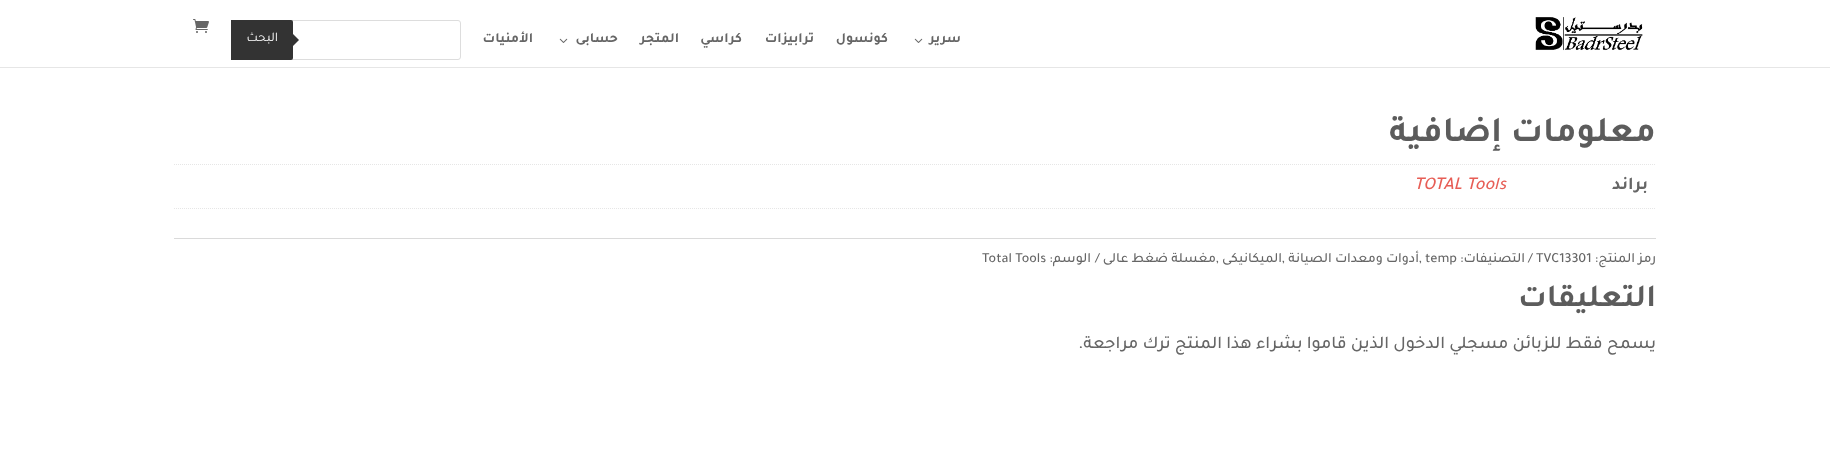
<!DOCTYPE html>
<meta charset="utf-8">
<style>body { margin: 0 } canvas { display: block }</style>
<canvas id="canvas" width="1830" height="466"></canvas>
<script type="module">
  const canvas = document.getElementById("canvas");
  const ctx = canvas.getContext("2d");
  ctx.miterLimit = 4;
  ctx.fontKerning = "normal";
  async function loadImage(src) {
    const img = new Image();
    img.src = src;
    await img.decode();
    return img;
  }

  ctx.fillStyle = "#ffffff";
  ctx.fillRect(0, 0, 1830, 466);
  ctx.fillStyle = "#e6e6e6";
  ctx.fillRect(0, 67, 1830, 1);
  ctx.drawImage(await loadImage("img1.png"), 1535, 17, 108, 34);
  ctx.drawImage(await loadImage("img2.png"), 193, 19, 16, 14);
  ctx.direction = "rtl";
  ctx.font = "bold 14px Tajawal";
  ctx.fillStyle = "#666666";
  ctx.fillText("سرير", 961, 42);
  ctx.drawImage(await loadImage("img3.png"), 914, 38, 9, 5);
  ctx.fillText("كونسول", 888, 42);
  ctx.fillText("ترابيزات", 814, 42);
  ctx.fillText("كراسي", 742, 42);
  ctx.fillText("المتجر", 679, 42);
  ctx.fillText("حسابى", 618, 42);
  ctx.drawImage(await loadImage("img3.png"), 559, 38, 9, 5);
  ctx.fillText("الأمنيات", 533, 42);
  ctx.beginPath();
  ctx.roundRect(231.5, 20.5, 229, 39, 2.5);
  ctx.strokeStyle = "#dddddd";
  ctx.stroke();
  ctx.fillStyle = "#333333";
  ctx.beginPath();
  ctx.roundRect(231, 20, 62, 40, [0, 2, 2, 0]);
  ctx.fill();
  ctx.beginPath();
  ctx.moveTo(291, 48);
  ctx.lineTo(291, 32);
  ctx.lineTo(299, 40);
  ctx.closePath();
  ctx.fill();
  ctx.font = "13px Tajawal";
  ctx.fillStyle = "#ffffff";
  ctx.fillText("البحث", 278, 41);
  ctx.font = "bold 36px Tajawal";
  ctx.fillStyle = "#5c5c5c";
  ctx.fillText("معلومات إضافية", 1656, 141);
  ctx.beginPath();
  ctx.moveTo(174, 164.5);
  ctx.lineTo(1656, 164.5);
  ctx.strokeStyle = "#e6e6e6";
  ctx.setLineDash([1, 1]);
  ctx.stroke();
  ctx.beginPath();
  ctx.moveTo(1506, 208.5);
  ctx.lineTo(1656, 208.5);
  ctx.stroke();
  ctx.font = "bold 18px Tajawal";
  ctx.fillStyle = "#666666";
  ctx.fillText("براند", 1648, 189);
  ctx.beginPath();
  ctx.moveTo(174, 208.5);
  ctx.lineTo(1506, 208.5);
  ctx.stroke();
  ctx.direction = "ltr";
  ctx.font = "italic 500 18px Tajawal";
  ctx.fillStyle = "#e75e56";
  ctx.fillText("TOTAL Tools", 1414, 189);
  ctx.fillStyle = "#dadada";
  ctx.fillRect(174, 238, 1482, 1);
  ctx.direction = "rtl";
  ctx.font = "500 14px Tajawal";
  ctx.fillStyle = "#666666";
  ctx.fillText("رمز المنتج:", 1656, 262);
  ctx.direction = "ltr";
  ctx.fillText("TVC13301", 1536, 262);
  ctx.fillText("/", 1528, 262);
  ctx.direction = "rtl";
  ctx.fillText("التصنيفات:", 1525, 262);
  ctx.direction = "ltr";
  ctx.fillText("temp", 1425, 262);
  ctx.fillText(",", 1419, 262);
  ctx.direction = "rtl";
  ctx.fillText("أدوات ومعدات الصيانة", 1419, 262);
  ctx.direction = "ltr";
  ctx.fillText(",", 1282, 262);
  ctx.direction = "rtl";
  ctx.fillText("الميكانيكى", 1282, 262);
  ctx.direction = "ltr";
  ctx.fillText(",", 1216, 262);
  ctx.direction = "rtl";
  ctx.fillText("مغسلة ضغط عالى", 1216, 262);
  ctx.direction = "ltr";
  ctx.fillText("/", 1095, 262);
  ctx.direction = "rtl";
  ctx.fillText("الوسم:", 1091, 262);
  ctx.direction = "ltr";
  ctx.fillText("Total Tools", 982, 262);
  ctx.direction = "rtl";
  ctx.font = "bold 32px Tajawal";
  ctx.fillStyle = "#5c5c5c";
  ctx.fillText("التعليقات", 1656, 306);
  ctx.font = "500 18px Tajawal";
  ctx.fillStyle = "#666666";
  ctx.fillText("يسمح فقط للزبائن مسجلي الدخول الذين قاموا بشراء هذا المنتج ترك مراجعة.", 1656, 348);
</script>
